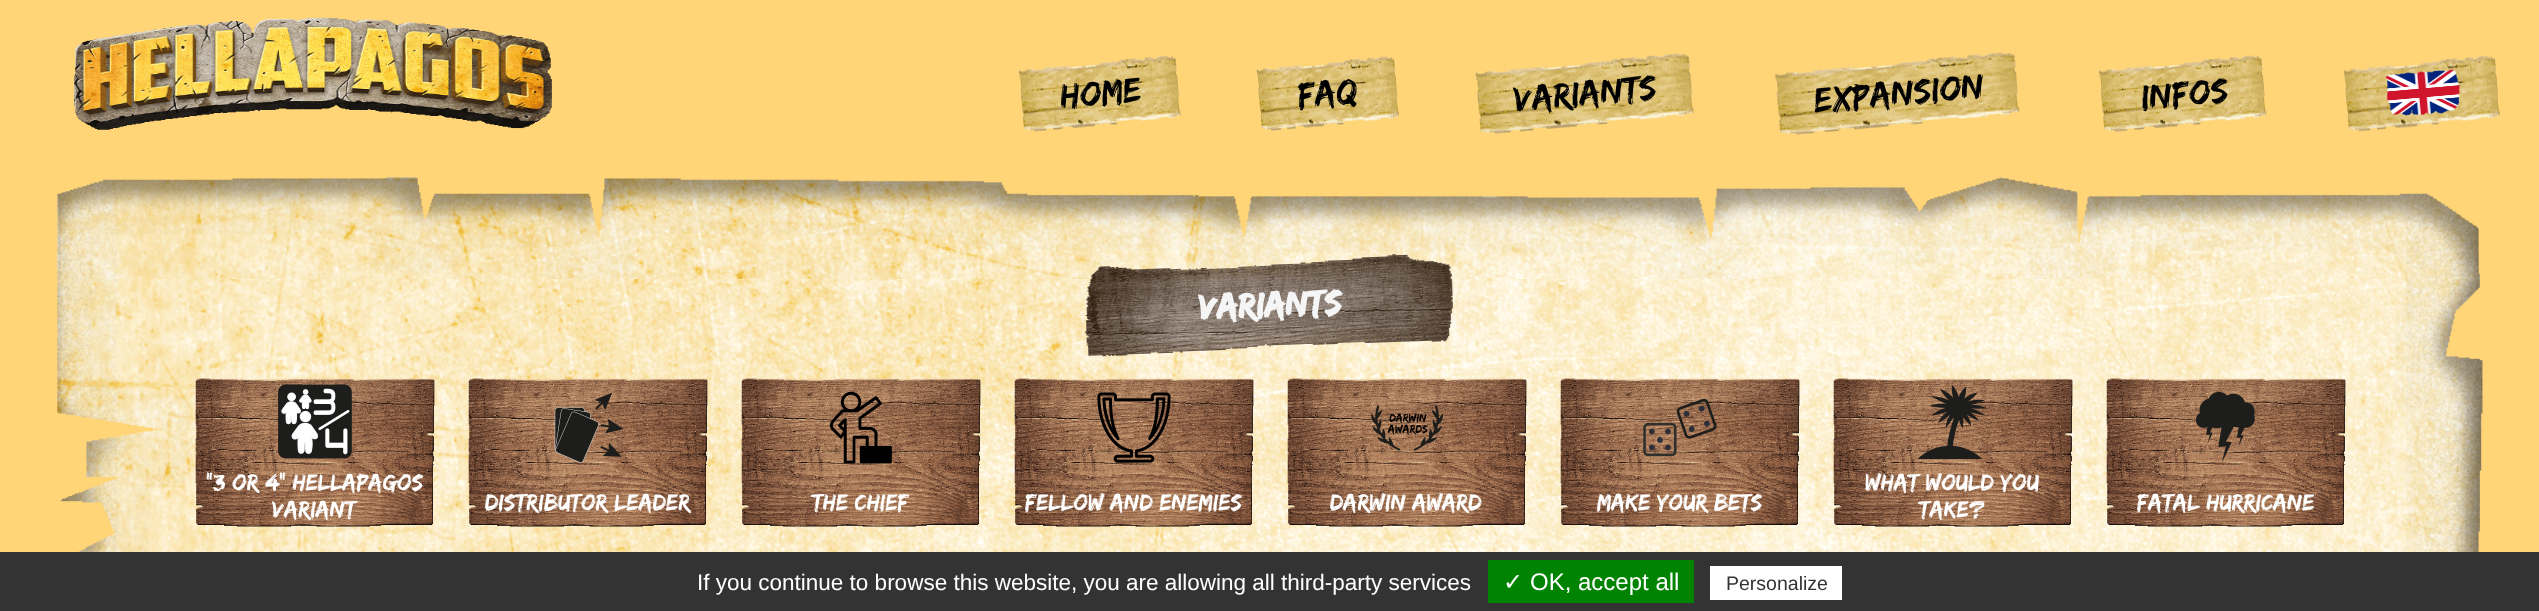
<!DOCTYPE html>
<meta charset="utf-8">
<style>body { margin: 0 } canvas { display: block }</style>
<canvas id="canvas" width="2539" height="611"></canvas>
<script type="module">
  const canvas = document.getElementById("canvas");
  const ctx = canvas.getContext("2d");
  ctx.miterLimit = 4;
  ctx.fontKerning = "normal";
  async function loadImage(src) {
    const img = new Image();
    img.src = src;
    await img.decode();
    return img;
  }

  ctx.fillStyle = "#ffd577";
  ctx.fillRect(0, 0, 2539, 611);
  ctx.drawImage(await loadImage("img1.png"), 74, 18, 478, 112);
  ctx.drawImage(await loadImage("img2.png"), 1019, 55, 162, 77);
  ctx.font = "36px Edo";
  ctx.fillStyle = "#000000";
  ctx.save();
  ctx.translate(1061, 108);
  ctx.rotate(-5 * Math.PI / 180);
  ctx.fillText("Home", 0, 0);
  ctx.restore();
  ctx.drawImage(await loadImage("img3.png"), 1256, 56, 143, 75);
  ctx.save();
  ctx.translate(1299, 107);
  ctx.rotate(-5 * Math.PI / 180);
  ctx.fillText("FAQ", 0, 0);
  ctx.restore();
  ctx.drawImage(await loadImage("img4.png"), 1475, 53, 219, 81);
  ctx.save();
  ctx.translate(1515, 111);
  ctx.rotate(-5 * Math.PI / 180);
  ctx.fillText("Variants", 0, 0);
  ctx.restore();
  ctx.drawImage(await loadImage("img5.png"), 1775, 52, 245, 83);
  ctx.save();
  ctx.translate(1815, 112);
  ctx.rotate(-5 * Math.PI / 180);
  ctx.fillText("Expansion", 0, 0);
  ctx.restore();
  ctx.drawImage(await loadImage("img6.png"), 2099, 55, 168, 77);
  ctx.save();
  ctx.translate(2142, 109);
  ctx.rotate(-5 * Math.PI / 180);
  ctx.fillText("Infos", 0, 0);
  ctx.restore();
  ctx.drawImage(await loadImage("img7.png"), 2343, 56, 157, 76);
  ctx.drawImage(await loadImage("img8.png"), 2385, 69, 75, 47);
  ctx.drawImage(await loadImage("img9.png"), 2385, 69, 75, 47);
  ctx.drawImage(await loadImage("img10.png"), 57, 253, 2426, 299);
  ctx.drawImage(await loadImage("img11.png"), 57, 177, 2423, 102);
  ctx.drawImage(await loadImage("img12.png"), 1085, 254, 369, 103);
  ctx.font = "bold 36px Edo";
  ctx.fillStyle = "#f5f5f5";
  ctx.save();
  ctx.translate(1199, 319);
  ctx.rotate(-2 * Math.PI / 180);
  ctx.fillText("Variants", 0, 0);
  ctx.restore();
  ctx.drawImage(await loadImage("img13.png"), 195, 378, 240, 149);
  ctx.drawImage(await loadImage("img14.png"), 278, 384, 74, 75);
  ctx.font = "24px Edo";
  ctx.fillStyle = "#ffffff";
  ctx.fillText("\"3 or 4\" Hellapagos", 206, 490);
  ctx.fillText("variant", 272, 517);
  ctx.drawImage(await loadImage("img15.png"), 468, 378, 240, 149);
  ctx.drawImage(await loadImage("img16.png"), 554, 392, 70, 71);
  ctx.fillText("Distributor leader", 485, 510);
  ctx.drawImage(await loadImage("img17.png"), 741, 378, 240, 149);
  ctx.drawImage(await loadImage("img18.png"), 829, 391, 63, 73);
  ctx.fillText("The chief", 812, 510);
  ctx.drawImage(await loadImage("img19.png"), 1014, 378, 240, 149);
  ctx.drawImage(await loadImage("img20.png"), 1097, 392, 74, 71);
  ctx.fillText("Fellow and enemies", 1025, 510);
  ctx.drawImage(await loadImage("img21.png"), 1287, 378, 240, 149);
  ctx.drawImage(await loadImage("img22.png"), 1371, 405, 72, 46);
  ctx.fillText("Darwin award", 1330, 510);
  ctx.drawImage(await loadImage("img23.png"), 1560, 378, 240, 149);
  ctx.drawImage(await loadImage("img24.png"), 1643, 398, 74, 59);
  ctx.fillText("Make your bets", 1597, 510);
  ctx.drawImage(await loadImage("img25.png"), 1833, 378, 240, 149);
  ctx.drawImage(await loadImage("img26.png"), 1917, 385, 71, 74);
  ctx.fillText("What would you", 1865, 490);
  ctx.fillText("take?", 1919, 517);
  ctx.drawImage(await loadImage("img27.png"), 2106, 378, 240, 149);
  ctx.drawImage(await loadImage("img28.png"), 2196, 392, 59, 71);
  ctx.fillText("Fatal Hurricane", 2137, 510);
  ctx.fillStyle = "#333333";
  ctx.fillRect(0, 552, 2539, 59);
  ctx.font = "22.5px Liberation Sans";
  ctx.fillStyle = "#ffffff";
  ctx.fillText("If you continue to browse this website, you are allowing all third-party services", 697, 590);
  ctx.fillStyle = "#008300";
  ctx.fillRect(1488, 560, 206, 43);
  ctx.font = "24px DejaVu Sans";
  ctx.fillStyle = "#ffffff";
  ctx.fillText("✓", 1503, 590);
  ctx.font = "24px Liberation Sans";
  ctx.fillText("OK, accept all", 1530, 590);
  ctx.fillRect(1710, 566, 132, 34);
  ctx.font = "19.5px Liberation Sans";
  ctx.fillStyle = "#333333";
  ctx.fillText("Personalize", 1726, 590);
</script>
